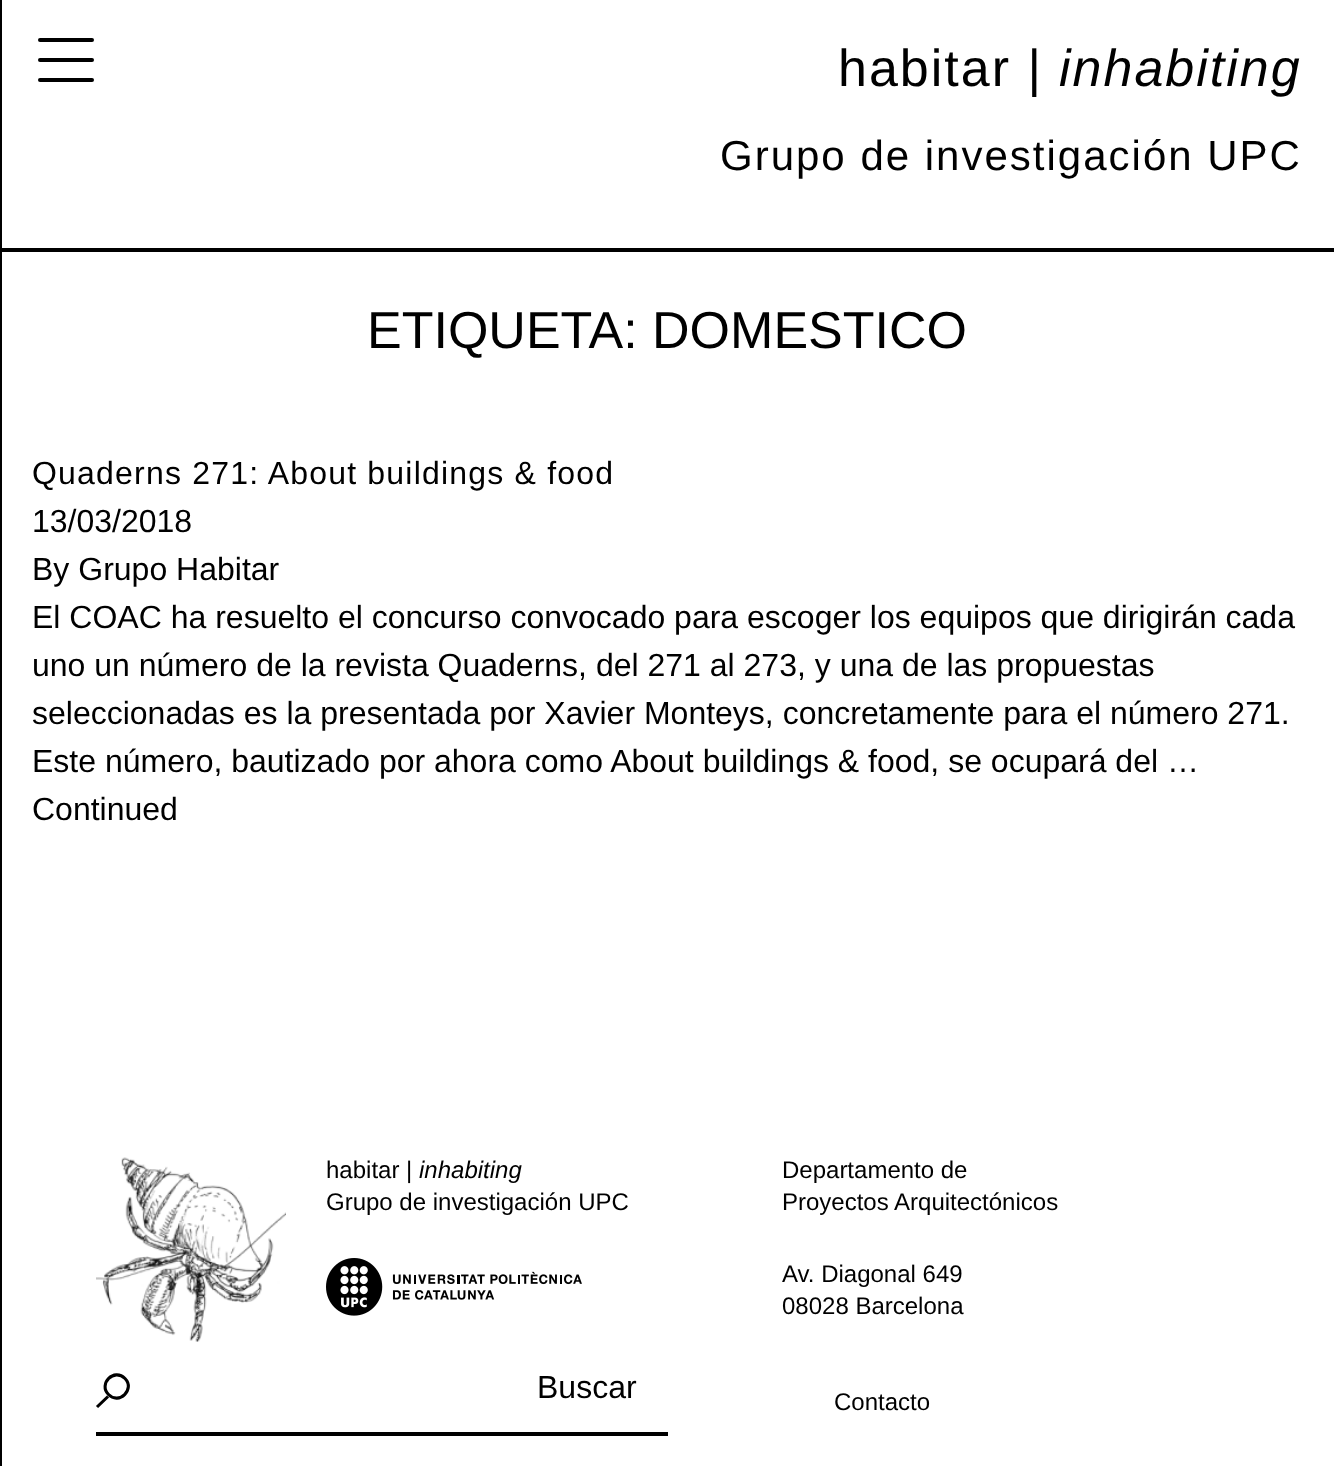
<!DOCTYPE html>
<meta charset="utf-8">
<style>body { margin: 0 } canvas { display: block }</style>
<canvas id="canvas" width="1334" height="1466"></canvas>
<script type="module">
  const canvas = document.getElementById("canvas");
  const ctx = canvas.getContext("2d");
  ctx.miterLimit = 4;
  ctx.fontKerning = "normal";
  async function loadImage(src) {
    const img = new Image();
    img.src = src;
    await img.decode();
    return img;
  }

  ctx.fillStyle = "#ffffff";
  ctx.fillRect(0, 0, 1334, 1466);
  ctx.fillStyle = "#000000";
  ctx.fillRect(0, 248, 1334, 4);
  ctx.fillRect(0, 0, 2, 1466);
  ctx.beginPath();
  ctx.roundRect(38, 78, 56, 4, 2);
  ctx.fill();
  ctx.beginPath();
  ctx.roundRect(38, 38, 56, 4, 2);
  ctx.fill();
  ctx.beginPath();
  ctx.roundRect(38, 58, 56, 4, 2);
  ctx.fill();
  ctx.letterSpacing = "2px";
  ctx.font = "52px Liberation Sans";
  ctx.fillText("habitar |", 838, 86);
  ctx.font = "italic 52px Liberation Sans";
  ctx.fillText("inhabiting", 1059, 86);
  ctx.font = "42px Liberation Sans";
  ctx.fillText("Grupo de investigación UPC", 720, 170);
  ctx.letterSpacing = "0px";
  ctx.font = "52px Liberation Sans";
  ctx.fillText("ETIQUETA: DOMESTICO", 367, 348);
  ctx.letterSpacing = "1.2px";
  ctx.font = "32px Liberation Sans";
  ctx.fillText("Quaderns 271: About buildings & food", 32, 484);
  ctx.letterSpacing = "0px";
  ctx.fillText("13/03/2018", 32, 532);
  ctx.fillText("By Grupo Habitar", 32, 580);
  ctx.fillText("El COAC ha resuelto el concurso convocado para escoger los equipos que dirigirán cada", 32, 628);
  ctx.fillText("uno un número de la revista Quaderns, del 271 al 273, y una de las propuestas", 32, 676);
  ctx.fillText("seleccionadas es la presentada por Xavier Monteys, concretamente para el número 271.", 32, 724);
  ctx.fillText("Este número, bautizado por ahora como About buildings & food, se ocupará del …", 32, 772);
  ctx.fillText("Continued", 32, 820);
  ctx.drawImage(await loadImage("img1.png"), 96, 1157, 190, 185);
  ctx.font = "24px Liberation Sans";
  ctx.fillText("habitar |", 326, 1178);
  ctx.font = "italic 24px Liberation Sans";
  ctx.fillText("inhabiting", 419, 1178);
  ctx.font = "24px Liberation Sans";
  ctx.fillText("Grupo de investigación UPC", 326, 1210);
  ctx.fillText("Departamento de", 782, 1178);
  ctx.fillText("Proyectos Arquitectónicos", 782, 1210);
  ctx.drawImage(await loadImage("img2.png"), 326, 1258, 256, 58);
  ctx.fillText("Av. Diagonal 649", 782, 1282);
  ctx.fillText("08028 Barcelona", 782, 1314);
  ctx.fillRect(96, 1432, 572, 4);
  ctx.beginPath();
  ctx.moveTo(125, 1378.5);
  ctx.bezierCurveTo(135.5, 1389, 119, 1405.5, 108.5, 1394.5);
  ctx.bezierCurveTo(98, 1384, 114, 1367.5, 125, 1378.5);
  ctx.closePath();
  ctx.moveTo(108, 1396.5);
  ctx.lineTo(97, 1407);
  ctx.strokeStyle = "#000000";
  ctx.lineWidth = 3.1;
  ctx.stroke();
  ctx.font = "32px Liberation Sans";
  ctx.fillText("Buscar", 537, 1398);
  ctx.font = "24px Liberation Sans";
  ctx.fillText("Contacto", 834, 1410);
</script>
